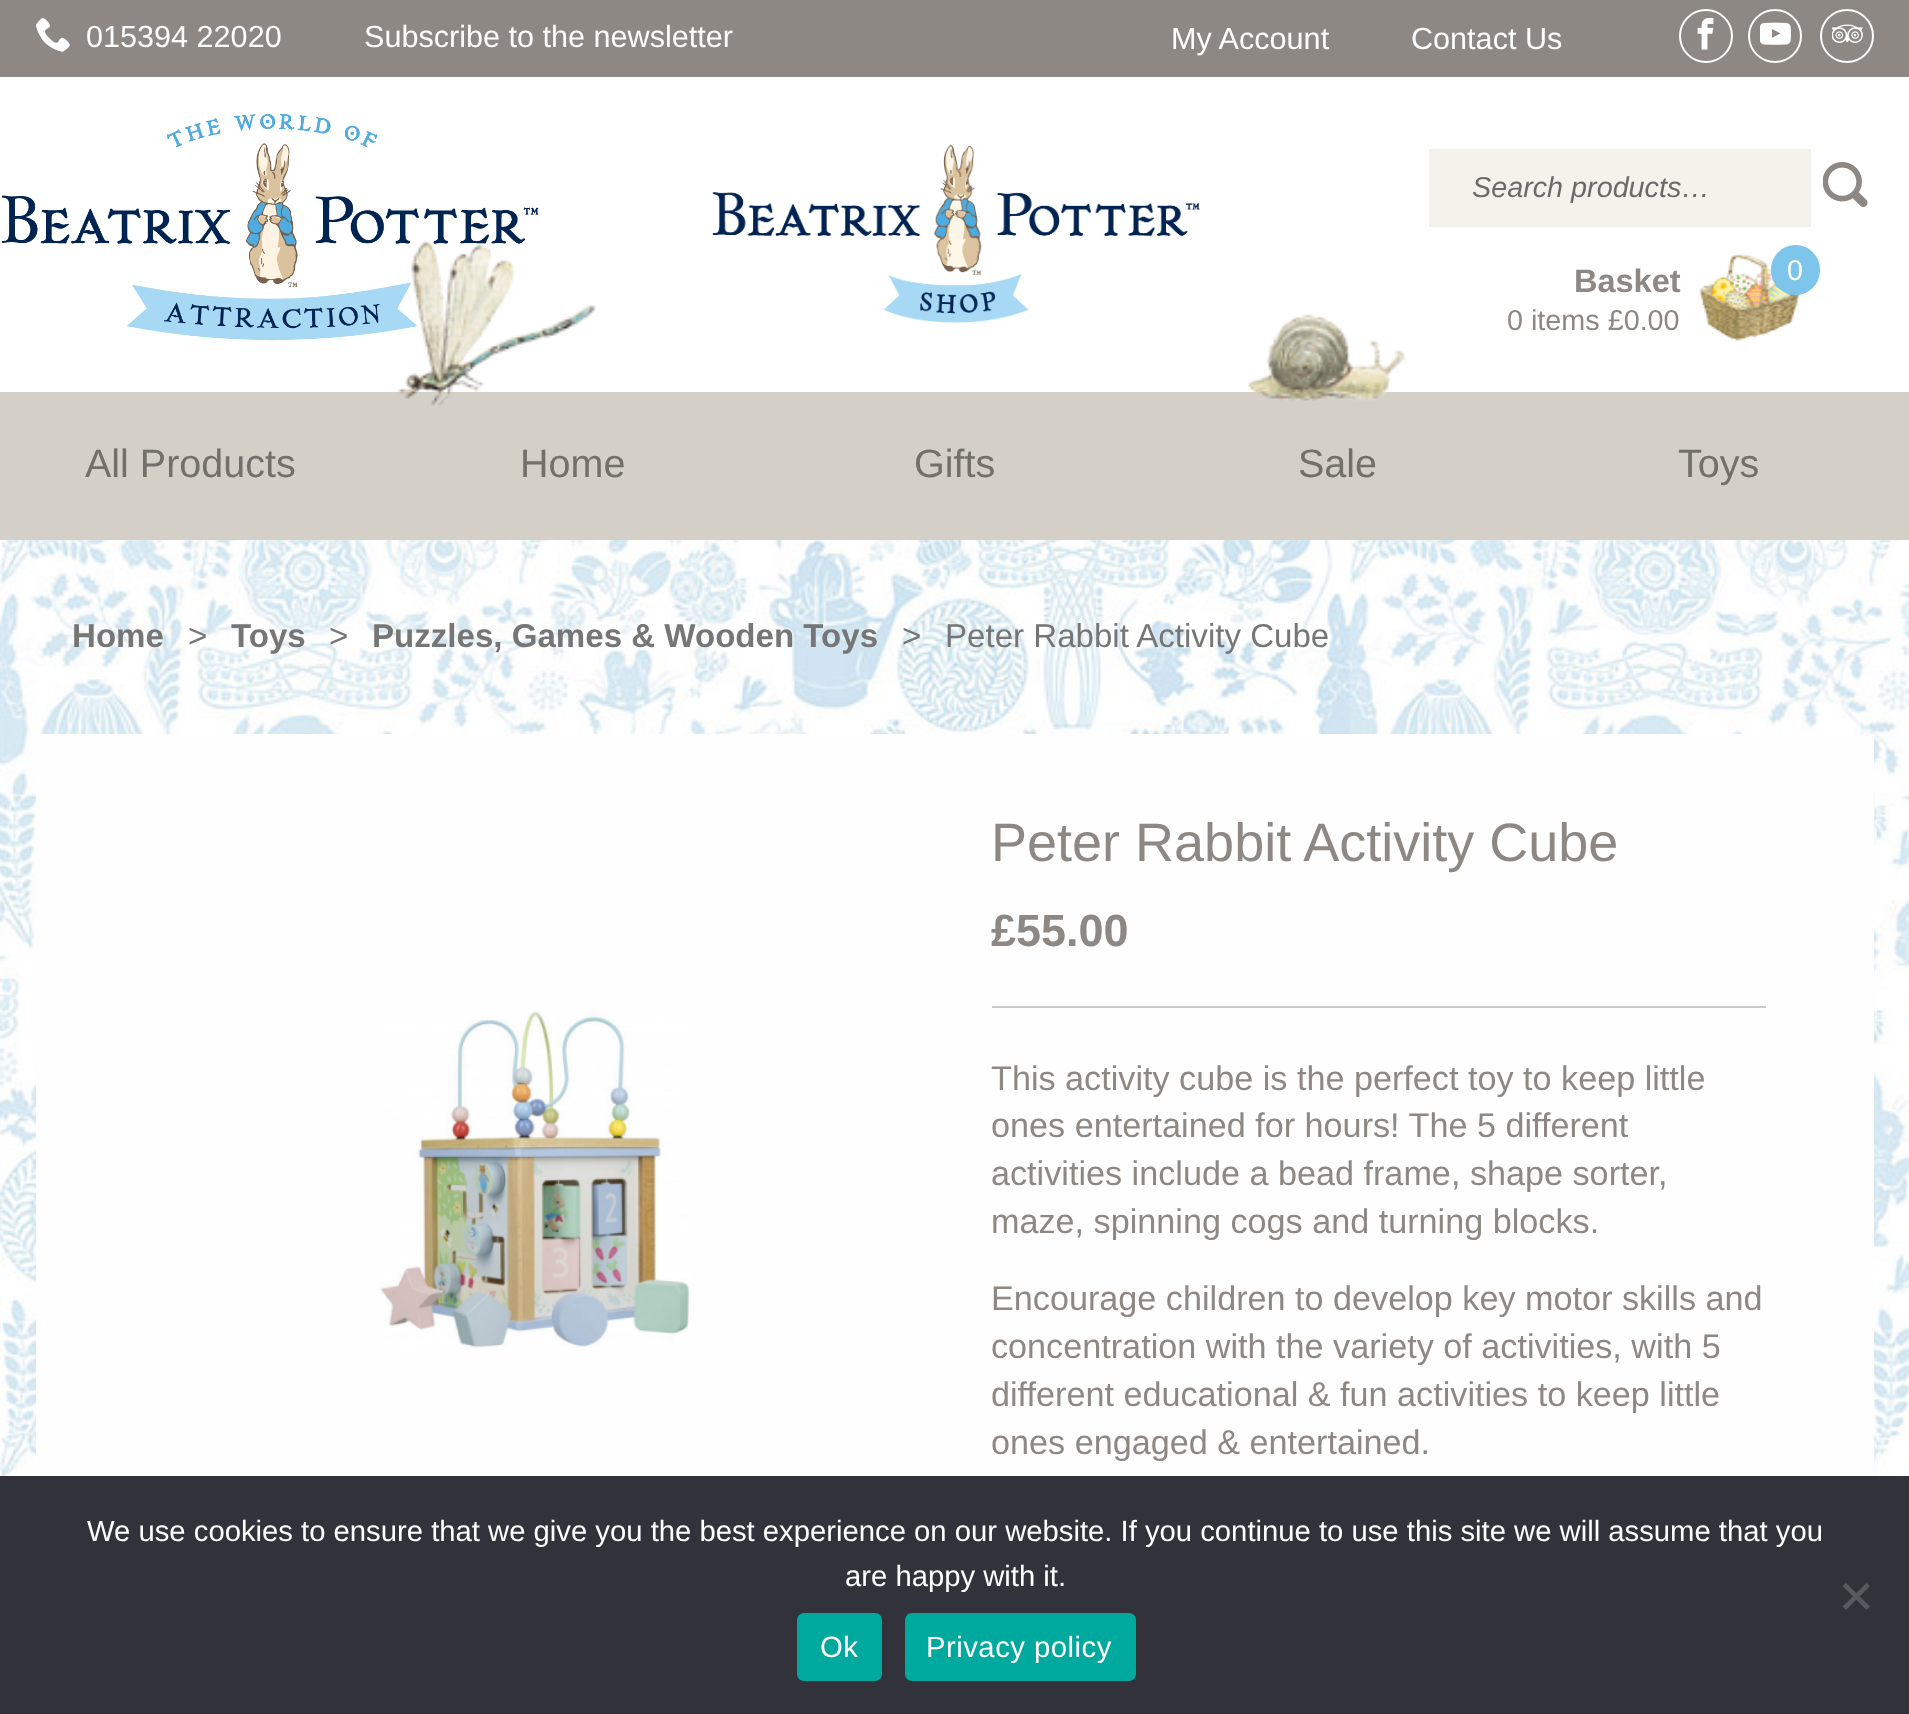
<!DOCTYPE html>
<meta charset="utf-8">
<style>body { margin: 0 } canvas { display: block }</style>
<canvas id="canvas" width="1909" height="1714"></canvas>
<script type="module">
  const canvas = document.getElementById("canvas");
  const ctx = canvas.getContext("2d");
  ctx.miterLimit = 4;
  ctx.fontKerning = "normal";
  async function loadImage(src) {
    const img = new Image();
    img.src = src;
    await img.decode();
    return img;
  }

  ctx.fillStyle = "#ffffff";
  ctx.fillRect(0, 0, 1909, 1714);
  ctx.fillStyle = "#8d8884";
  ctx.fillRect(0, 0, 1909, 77);
  ctx.drawImage(await loadImage("img1.png"), 36, 18, 34, 34);
  ctx.font = "30.6px Liberation Sans";
  ctx.fillStyle = "#fefefe";
  ctx.fillText("015394 22020", 86, 47);
  ctx.fillText("Subscribe to the newsletter", 364, 47);
  ctx.fillText("My Account", 1171, 49);
  ctx.fillText("Contact Us", 1411, 49);
  ctx.beginPath();
  ctx.arc(1706, 36, 26, 0, Math.PI * 2);
  ctx.strokeStyle = "#fefefe";
  ctx.lineWidth = 2;
  ctx.stroke();
  ctx.drawImage(await loadImage("img2.png"), 1697, 18, 17, 32);
  ctx.beginPath();
  ctx.arc(1775, 36, 26, 0, Math.PI * 2);
  ctx.stroke();
  ctx.drawImage(await loadImage("img3.png"), 1760, 22, 31, 23);
  ctx.beginPath();
  ctx.arc(1847, 36, 26, 0, Math.PI * 2);
  ctx.stroke();
  ctx.drawImage(await loadImage("img4.png"), 1832, 24, 31, 19);
  ctx.drawImage(await loadImage("img5.png"), 1, 114, 538, 227);
  ctx.drawImage(await loadImage("img6.png"), 712, 145, 488, 178);
  ctx.fillStyle = "#f3f3eb";
  ctx.fillRect(1429, 149, 382, 78);
  ctx.font = "italic 28.75px Liberation Sans";
  ctx.fillStyle = "#6a6a6a";
  ctx.fillText("Search products…", 1472, 197);
  ctx.drawImage(await loadImage("img7.png"), 1823, 162, 45, 45);
  ctx.drawImage(await loadImage("img8.png"), 1699, 253, 102, 88);
  ctx.font = "bold 32.5px Liberation Sans";
  ctx.fillStyle = "#8d8884";
  ctx.fillText("Basket", 1574, 292);
  ctx.fillStyle = "#7dc5ea";
  ctx.beginPath();
  ctx.roundRect(1771, 245, 49, 50, 24.5);
  ctx.fill();
  ctx.font = "28.75px Liberation Sans";
  ctx.fillStyle = "#fefefe";
  ctx.fillText("0", 1787, 280);
  ctx.fillStyle = "#8d8884";
  ctx.fillText("0 items £0.00", 1507, 330);
  ctx.fillStyle = "#d4d0c7";
  ctx.fillRect(0, 392, 1909, 148);
  ctx.drawImage(await loadImage("img9.png"), 397, 240, 200, 166);
  ctx.drawImage(await loadImage("img10.png"), 1247, 314, 159, 87);
  ctx.font = "39.5px Liberation Sans";
  ctx.fillStyle = "#736f6b";
  ctx.fillText("All Products", 85, 477);
  ctx.fillText("Home", 520, 477);
  ctx.fillText("Gifts", 914, 477);
  ctx.fillText("Sale", 1298, 477);
  ctx.fillText("Toys", 1678, 477);
  ctx.drawImage(await loadImage("img11.png"), 0, 540, 1909, 936);
  ctx.font = "bold 33.1px Liberation Sans";
  ctx.fillStyle = "#767676";
  ctx.fillText("Home", 72, 647);
  ctx.font = "33.1px Liberation Sans";
  ctx.fillText(">", 188, 647);
  ctx.font = "bold 33.1px Liberation Sans";
  ctx.fillText("Toys", 231, 647);
  ctx.font = "33.1px Liberation Sans";
  ctx.fillText(">", 329, 647);
  ctx.font = "bold 33.1px Liberation Sans";
  ctx.fillText("Puzzles, Games & Wooden Toys", 372, 647);
  ctx.font = "33.1px Liberation Sans";
  ctx.fillText(">", 902, 647);
  ctx.fillText("Peter Rabbit Activity Cube", 945, 647);
  ctx.fillStyle = "#fefefe";
  ctx.fillRect(36, 734, 1838, 742);
  ctx.drawImage(await loadImage("img12.png"), 380, 1011, 311, 337);
  ctx.font = "54px Liberation Sans";
  ctx.fillStyle = "#8d8884";
  ctx.fillText("Peter Rabbit Activity Cube", 991, 861);
  ctx.font = "bold 45px Liberation Sans";
  ctx.fillText("£55.00", 991, 946);
  ctx.fillStyle = "#cacaca";
  ctx.fillRect(992, 1006, 774, 2);
  ctx.font = "34.2px Liberation Sans";
  ctx.fillStyle = "#8d8884";
  ctx.fillText("This activity cube is the perfect toy to keep little", 991, 1090);
  ctx.fillText("ones entertained for hours! The 5 different", 991, 1137);
  ctx.fillText("activities include a bead frame, shape sorter,", 991, 1185);
  ctx.fillText("maze, spinning cogs and turning blocks.", 991, 1233);
  ctx.fillText("Encourage children to develop key motor skills and", 991, 1310);
  ctx.fillText("concentration with the variety of activities, with 5", 991, 1358);
  ctx.fillText("different educational & fun activities to keep little", 991, 1406);
  ctx.fillText("ones engaged & entertained.", 991, 1454);
  ctx.fillStyle = "#32323a";
  ctx.fillRect(0, 1476, 1909, 238);
  ctx.font = "29.25px Liberation Sans";
  ctx.fillStyle = "#fefefe";
  ctx.fillText("We use cookies to ensure that we give you the best experience on our website. If you continue to use this site we will assume that you", 87, 1541);
  ctx.fillText("are happy with it.", 845, 1586);
  ctx.fillStyle = "#59595d";
  ctx.beginPath();
  ctx.moveTo(1866.5, 1583);
  ctx.lineTo(1870, 1586);
  ctx.lineTo(1846, 1610);
  ctx.lineTo(1842.5, 1606.5);
  ctx.closePath();
  ctx.fill();
  ctx.beginPath();
  ctx.moveTo(1842.5, 1586);
  ctx.lineTo(1846, 1583);
  ctx.lineTo(1870, 1606.5);
  ctx.lineTo(1866.5, 1610);
  ctx.closePath();
  ctx.fill();
  ctx.fillStyle = "#00a99d";
  ctx.beginPath();
  ctx.roundRect(797, 1613, 85, 68, 7);
  ctx.fill();
  ctx.letterSpacing = "0.5px";
  ctx.fillStyle = "#fefefe";
  ctx.fillText("Ok", 820, 1657);
  ctx.fillStyle = "#00a99d";
  ctx.beginPath();
  ctx.roundRect(905, 1613, 231, 68, 7);
  ctx.fill();
  ctx.fillStyle = "#fefefe";
  ctx.fillText("Privacy policy", 926, 1657);
</script>
